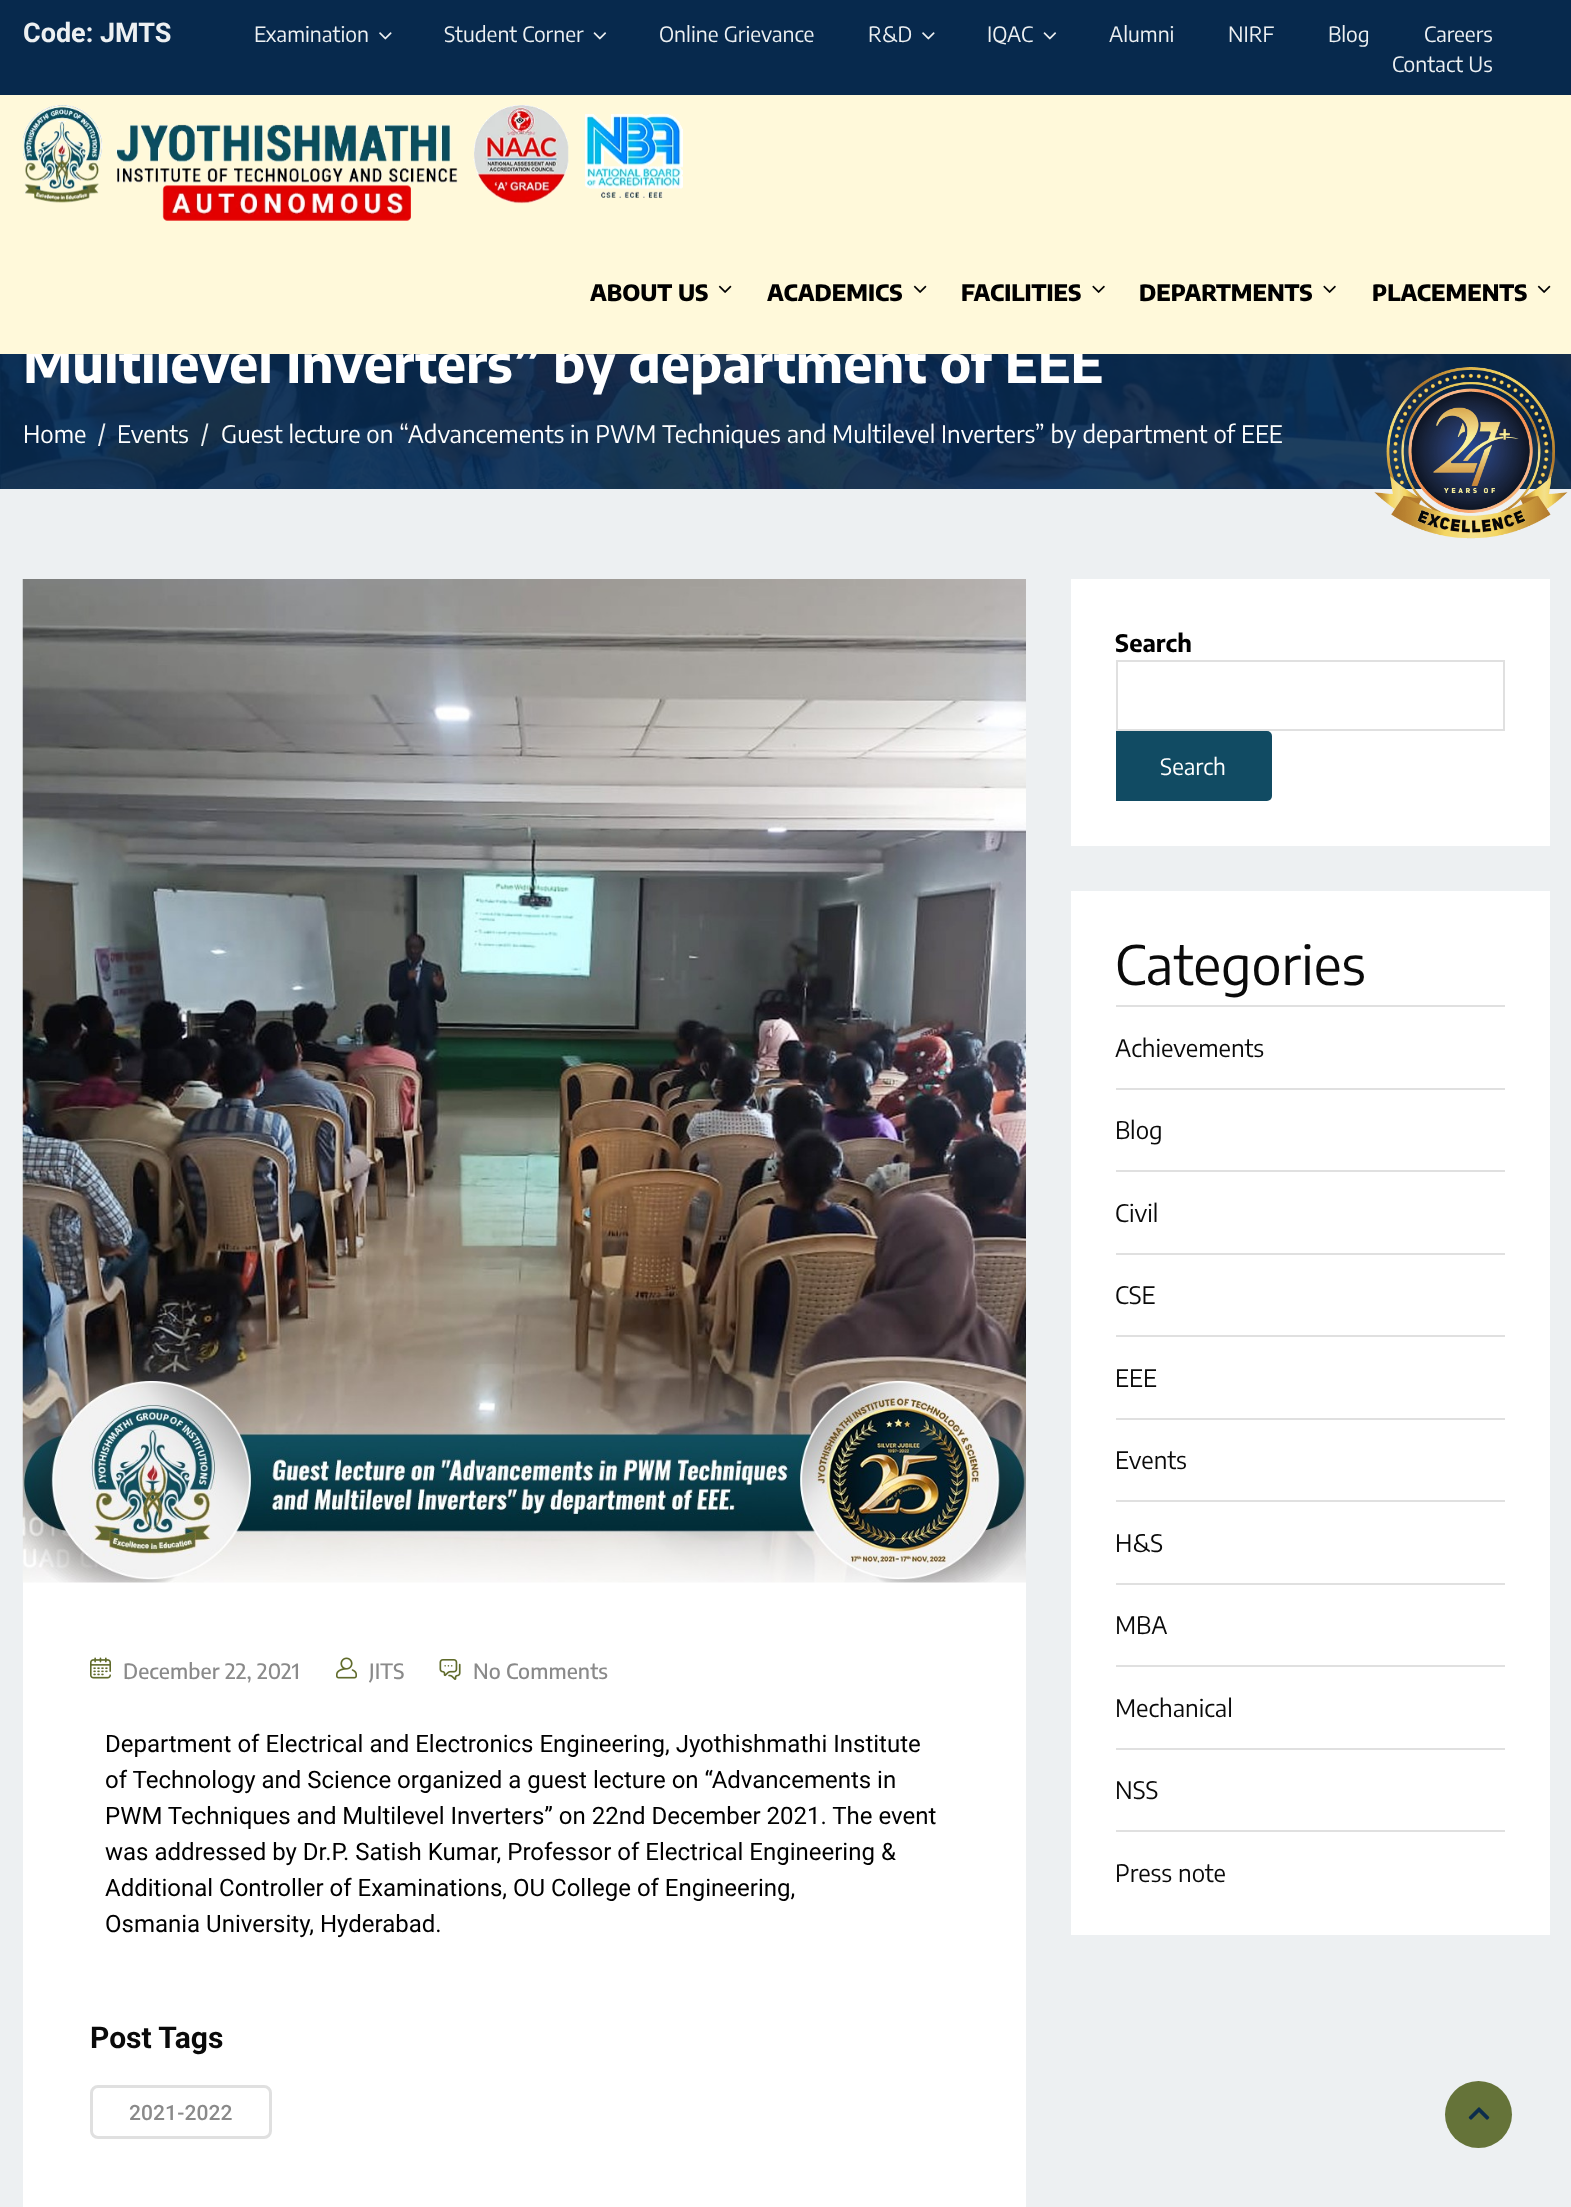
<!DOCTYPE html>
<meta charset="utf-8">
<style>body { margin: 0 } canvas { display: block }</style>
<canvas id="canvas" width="1571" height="2207"></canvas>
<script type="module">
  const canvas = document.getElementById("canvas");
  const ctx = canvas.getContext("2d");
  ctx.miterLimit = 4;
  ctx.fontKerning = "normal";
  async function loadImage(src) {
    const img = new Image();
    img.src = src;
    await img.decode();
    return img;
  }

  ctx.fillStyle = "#edf0f2";
  ctx.fillRect(0, 0, 1571, 2207);
  ctx.drawImage(await loadImage("img6.png"), 0, 354, 1571, 135);
  ctx.font = "bold 52.5px Encode Sans Condensed";
  ctx.fillStyle = "#ffffff";
  ctx.fillText("Multilevel Inverters” by department of EEE", 23, 383);
  ctx.fillStyle = "#fff9da";
  ctx.fillRect(0, 95, 1571, 259);
  ctx.fillStyle = "#07294d";
  ctx.fillRect(0, 0, 1571, 95);
  ctx.font = "bold 27px Roboto";
  ctx.fillStyle = "#edf0f2";
  ctx.fillText("Code: JMTS", 23, 42);
  ctx.font = "21px Encode Sans Condensed";
  ctx.fillText("Examination", 254, 42);
  ctx.drawImage(await loadImage("img1.png"), 379, 32, 13, 8);
  ctx.fillText("Student Corner", 444, 42);
  ctx.drawImage(await loadImage("img2.png"), 593, 32, 14, 8);
  ctx.fillText("Online Grievance", 659, 42);
  ctx.fillText("R&D", 868, 42);
  ctx.drawImage(await loadImage("img1.png"), 922, 32, 13, 8);
  ctx.fillText("IQAC", 987, 42);
  ctx.drawImage(await loadImage("img2.png"), 1043, 32, 14, 8);
  ctx.fillText("Alumni", 1109, 42);
  ctx.fillText("NIRF", 1228, 42);
  ctx.fillText("Blog", 1328, 42);
  ctx.fillText("Careers", 1424, 42);
  ctx.fillText("Contact Us", 1392, 72);
  ctx.drawImage(await loadImage("img3.png"), 23, 105, 660, 116);
  ctx.font = "800 22.5px Encode Sans Condensed";
  ctx.fillStyle = "#000000";
  ctx.fillText("ABOUT US", 590, 301);
  ctx.drawImage(await loadImage("img4.png"), 718, 285, 14, 8);
  ctx.fillText("ACADEMICS", 767, 301);
  ctx.drawImage(await loadImage("img4.png"), 913, 285, 14, 8);
  ctx.fillText("FACILITIES", 961, 301);
  ctx.drawImage(await loadImage("img5.png"), 1092, 285, 13, 8);
  ctx.fillText("DEPARTMENTS", 1139, 301);
  ctx.drawImage(await loadImage("img5.png"), 1323, 285, 13, 8);
  ctx.fillText("PLACEMENTS", 1372, 301);
  ctx.drawImage(await loadImage("img4.png"), 1537, 285, 14, 8);
  ctx.font = "24px Encode Sans Condensed";
  ctx.fillStyle = "#ffffff";
  ctx.fillText("Home", 23, 443);
  ctx.fillStyle = "#edf0f2";
  ctx.fillText("/", 98, 443);
  ctx.fillStyle = "#ffffff";
  ctx.fillText("Events", 117, 443);
  ctx.fillStyle = "#edf0f2";
  ctx.fillText("/", 201, 443);
  ctx.fillStyle = "#ffffff";
  ctx.fillText("Guest lecture on “Advancements in PWM Techniques and Multilevel Inverters” by department of EEE", 221, 443);
  ctx.fillRect(23, 1582, 1003, 625);
  ctx.drawImage(await loadImage("img7.png"), 22, 579, 1004, 1004);
  ctx.drawImage(await loadImage("img8.png"), 90, 1657, 21, 22);
  ctx.letterSpacing = "0.1px";
  ctx.font = "500 21px Encode Sans Condensed";
  ctx.fillStyle = "#8a8a8a";
  ctx.fillText("December 22, 2021", 123, 1679);
  ctx.drawImage(await loadImage("img9.png"), 336, 1657, 21, 22);
  ctx.fillText("JITS", 369, 1679);
  ctx.drawImage(await loadImage("img10.png"), 439, 1659, 22, 21);
  ctx.fillText("No Comments", 473, 1679);
  ctx.letterSpacing = "0px";
  ctx.font = "24px Roboto";
  ctx.fillStyle = "#000000";
  ctx.fillText("Department of Electrical and Electronics Engineering, Jyothishmathi Institute", 105, 1752);
  ctx.fillText("of Technology and Science organized a guest lecture on “Advancements in", 105, 1788);
  ctx.fillText("PWM Techniques and Multilevel Inverters” on 22nd December 2021. The event", 105, 1824);
  ctx.fillText("was addressed by Dr.P. Satish Kumar, Professor of Electrical Engineering &", 105, 1860);
  ctx.fillText("Additional Controller of Examinations, OU College of Engineering,", 105, 1896);
  ctx.fillText("Osmania University, Hyderabad.", 105, 1932);
  ctx.font = "bold 30px Roboto";
  ctx.fillStyle = "#0a0a0a";
  ctx.fillText("Post Tags", 90, 2048);
  ctx.beginPath();
  ctx.roundRect(91.5, 2086.5, 179, 51, 6.5);
  ctx.strokeStyle = "#e0e0e0";
  ctx.lineWidth = 3;
  ctx.stroke();
  ctx.letterSpacing = "0.1px";
  ctx.font = "500 21px Roboto";
  ctx.fillStyle = "#8a8a8a";
  ctx.fillText("2021-2022", 129, 2120);
  ctx.fillStyle = "#ffffff";
  ctx.fillRect(1071, 579, 479, 267);
  ctx.letterSpacing = "0px";
  ctx.font = "bold 24px Encode Sans Condensed";
  ctx.fillStyle = "#000000";
  ctx.fillText("Search", 1115, 652);
  ctx.lineWidth = 2;
  ctx.strokeRect(1117, 661, 387, 69);
  ctx.fillStyle = "#114b63";
  ctx.beginPath();
  ctx.roundRect(1116, 731, 156, 70, [0, 5, 5, 0]);
  ctx.fill();
  ctx.font = "22.5px Encode Sans Condensed";
  ctx.fillStyle = "#ffffff";
  ctx.fillText("Search", 1160, 775);
  ctx.fillRect(1071, 891, 479, 1044);
  ctx.font = "54px Encode Sans Condensed";
  ctx.fillStyle = "#0a0a0a";
  ctx.fillText("Categories", 1115, 985);
  ctx.fillStyle = "#e0e0e0";
  ctx.fillRect(1116, 1005, 389, 2);
  ctx.font = "24px Encode Sans Condensed";
  ctx.fillStyle = "#0a0a0a";
  ctx.fillText("Achievements", 1115, 1057);
  ctx.fillStyle = "#e0e0e0";
  ctx.fillRect(1116, 1088, 389, 2);
  ctx.fillStyle = "#0a0a0a";
  ctx.fillText("Blog", 1115, 1139);
  ctx.fillStyle = "#e0e0e0";
  ctx.fillRect(1116, 1170, 389, 2);
  ctx.fillStyle = "#0a0a0a";
  ctx.fillText("Civil", 1115, 1222);
  ctx.fillStyle = "#e0e0e0";
  ctx.fillRect(1116, 1253, 389, 2);
  ctx.fillStyle = "#0a0a0a";
  ctx.fillText("CSE", 1115, 1304);
  ctx.fillStyle = "#e0e0e0";
  ctx.fillRect(1116, 1335, 389, 2);
  ctx.fillStyle = "#0a0a0a";
  ctx.fillText("EEE", 1115, 1387);
  ctx.fillStyle = "#e0e0e0";
  ctx.fillRect(1116, 1418, 389, 2);
  ctx.fillStyle = "#0a0a0a";
  ctx.fillText("Events", 1115, 1469);
  ctx.fillStyle = "#e0e0e0";
  ctx.fillRect(1116, 1500, 389, 2);
  ctx.fillStyle = "#0a0a0a";
  ctx.fillText("H&S", 1115, 1552);
  ctx.fillStyle = "#e0e0e0";
  ctx.fillRect(1116, 1583, 389, 2);
  ctx.fillStyle = "#0a0a0a";
  ctx.fillText("MBA", 1115, 1634);
  ctx.fillStyle = "#e0e0e0";
  ctx.fillRect(1116, 1665, 389, 2);
  ctx.fillStyle = "#0a0a0a";
  ctx.fillText("Mechanical", 1115, 1717);
  ctx.fillStyle = "#e0e0e0";
  ctx.fillRect(1116, 1748, 389, 2);
  ctx.fillStyle = "#0a0a0a";
  ctx.fillText("NSS", 1115, 1799);
  ctx.fillStyle = "#e0e0e0";
  ctx.fillRect(1116, 1830, 389, 2);
  ctx.fillStyle = "#0a0a0a";
  ctx.fillText("Press note", 1115, 1882);
  ctx.drawImage(await loadImage("img11.png"), 1374, 367, 194, 172);
  ctx.fillStyle = "#657339";
  ctx.beginPath();
  ctx.arc(1478.5, 2114.5, 33.5, 0, Math.PI * 2);
  ctx.fill();
  ctx.drawImage(await loadImage("img12.png"), 1468, 2107, 22, 13);
</script>
